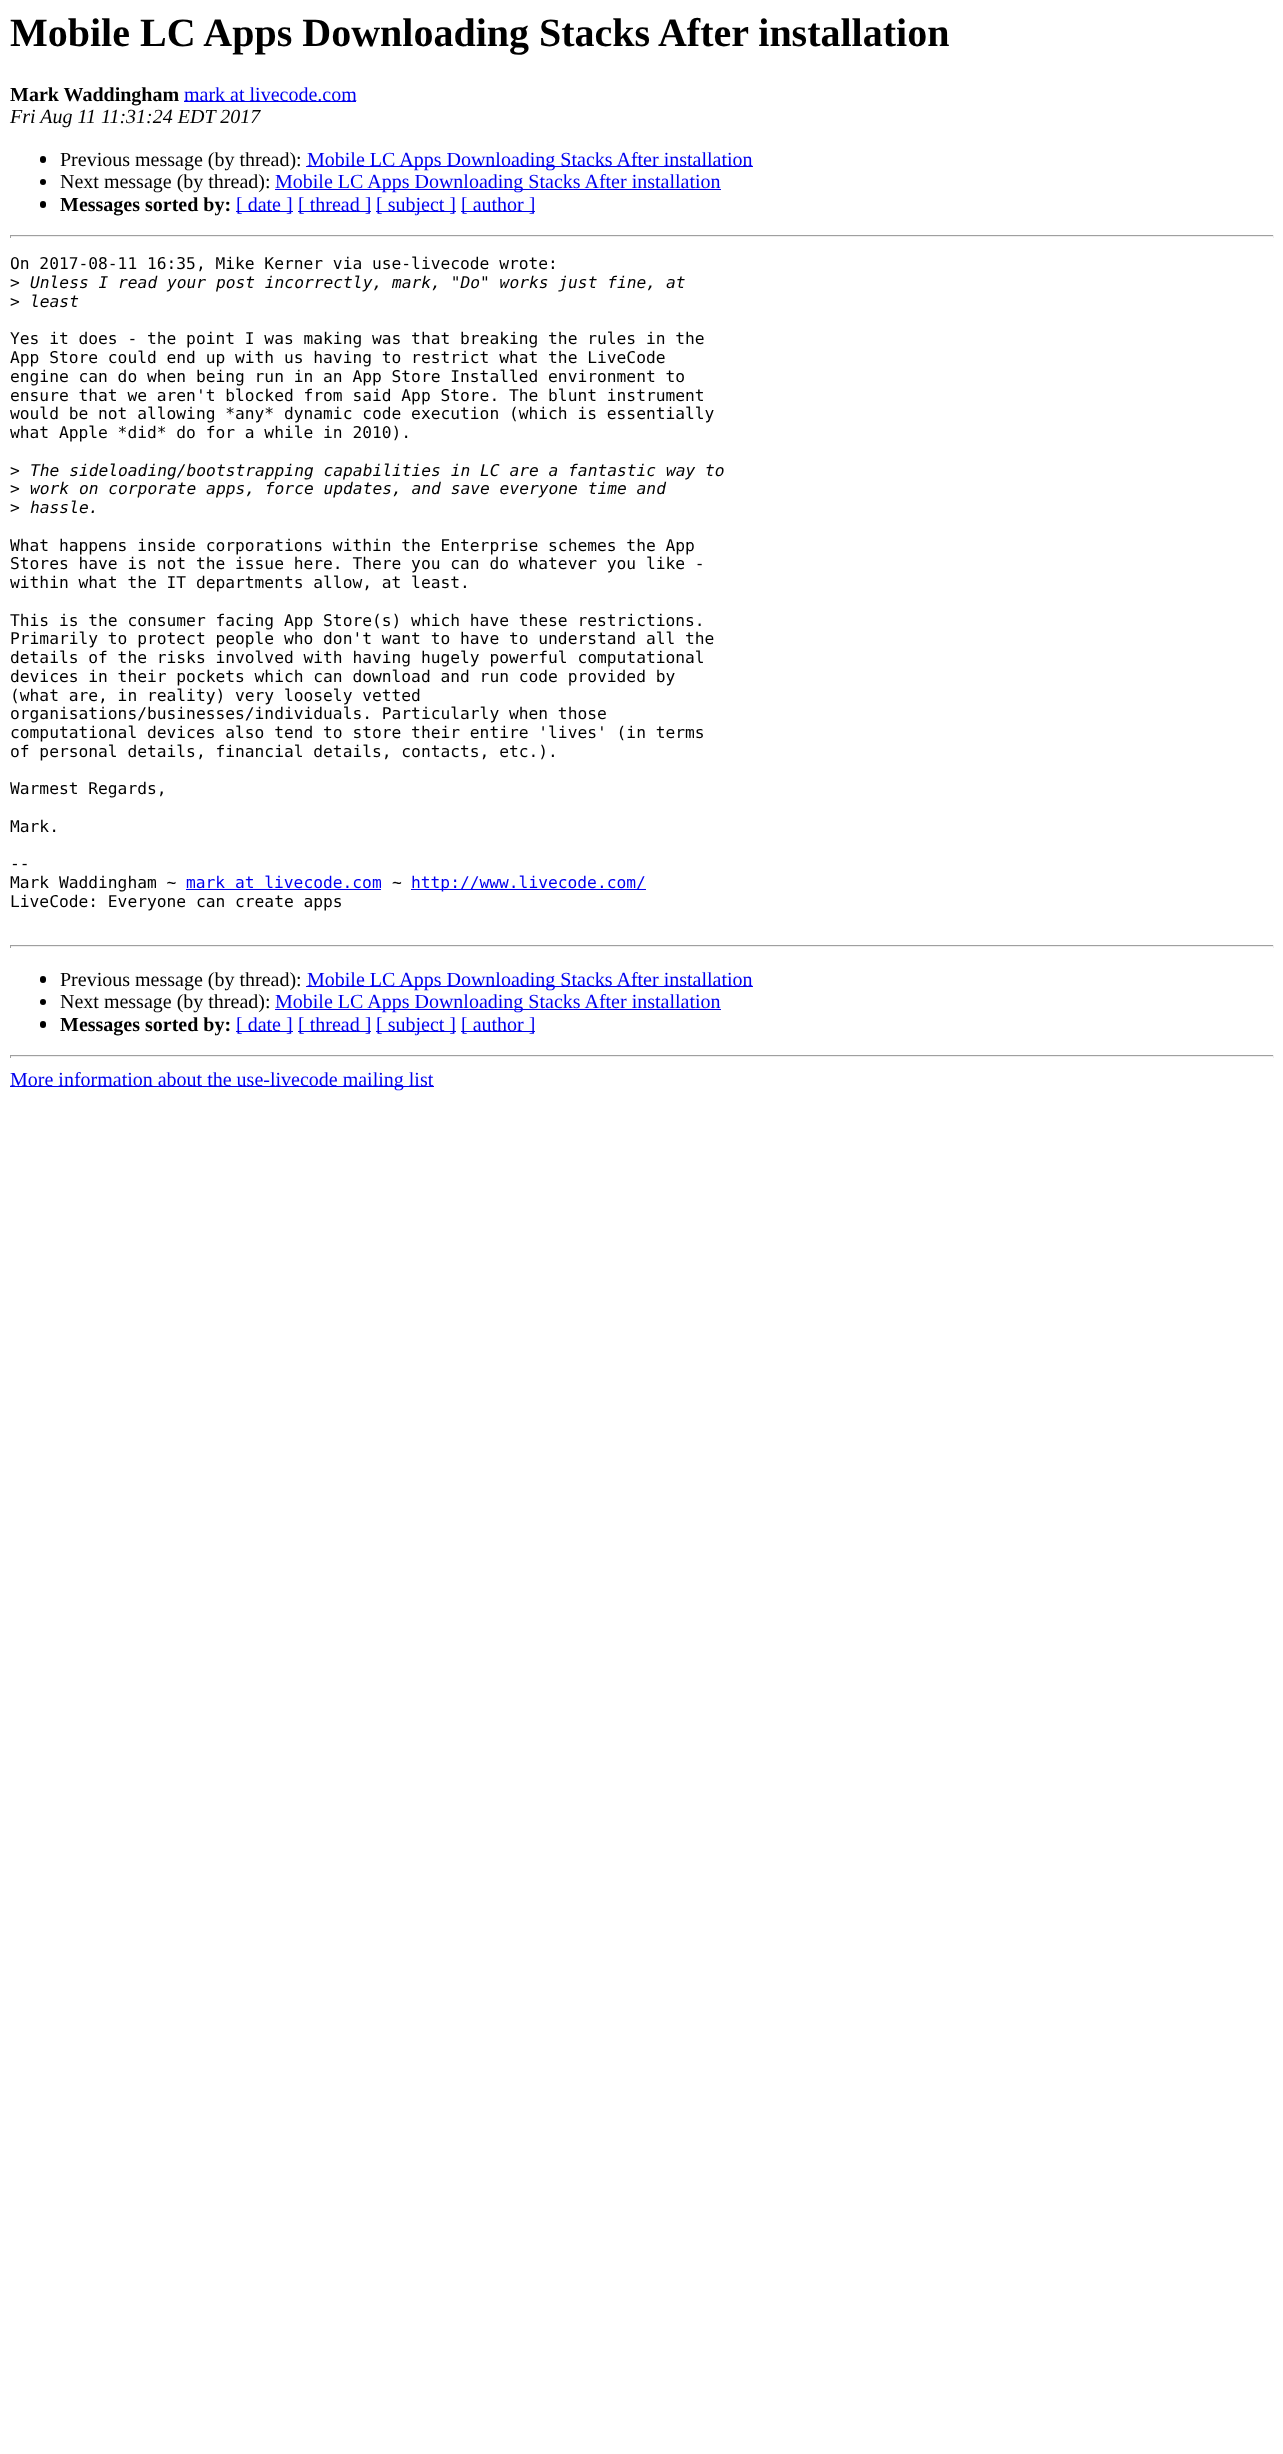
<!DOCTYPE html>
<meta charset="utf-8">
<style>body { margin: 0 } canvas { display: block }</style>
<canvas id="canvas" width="1283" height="2454"></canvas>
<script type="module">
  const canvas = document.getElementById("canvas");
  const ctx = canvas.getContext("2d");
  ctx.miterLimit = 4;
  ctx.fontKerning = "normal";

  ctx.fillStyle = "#ffffff";
  ctx.fillRect(0, 0, 1283, 2454);
  ctx.font = "bold 40px Liberation Serif";
  ctx.fillStyle = "#000000";
  ctx.fillText("Mobile LC Apps Downloading Stacks After installation", 10, 46);
  ctx.font = "bold 20px Liberation Serif";
  ctx.fillText("Mark Waddingham", 10, 101);
  ctx.fillStyle = "#0000ee";
  ctx.fillRect(184, 101, 172, 1);
  ctx.font = "20px Liberation Serif";
  ctx.fillText("mark at livecode.com", 184, 101);
  ctx.font = "italic 20px Liberation Serif";
  ctx.fillStyle = "#000000";
  ctx.fillText("Fri Aug 11 11:31:24 EDT 2017", 10, 123);
  ctx.beginPath();
  ctx.roundRect(40, 156, 6, 7, 3);
  ctx.fill();
  ctx.font = "20px Liberation Serif";
  ctx.fillText("Previous message (by thread):", 60, 166);
  ctx.fillStyle = "#0000ee";
  ctx.fillRect(306, 166, 447, 1);
  ctx.fillText("Mobile LC Apps Downloading Stacks After installation", 307, 166);
  ctx.fillStyle = "#000000";
  ctx.beginPath();
  ctx.arc(43, 182, 3, 0, Math.PI * 2);
  ctx.fill();
  ctx.fillText("Next message (by thread):", 60, 188);
  ctx.fillStyle = "#0000ee";
  ctx.fillRect(275, 189, 446, 1);
  ctx.fillText("Mobile LC Apps Downloading Stacks After installation", 275, 188);
  ctx.fillStyle = "#000000";
  ctx.beginPath();
  ctx.roundRect(40, 201, 6, 7, 3);
  ctx.fill();
  ctx.font = "bold 20px Liberation Serif";
  ctx.fillText("Messages sorted by:", 60, 211);
  ctx.fillStyle = "#0000ee";
  ctx.fillRect(236, 211, 57, 1);
  ctx.font = "20px Liberation Serif";
  ctx.fillText("[ date ]", 236, 211);
  ctx.fillRect(298, 211, 73, 1);
  ctx.fillText("[ thread ]", 298, 211);
  ctx.fillRect(376, 211, 80, 1);
  ctx.fillText("[ subject ]", 376, 211);
  ctx.fillRect(461, 211, 74, 1);
  ctx.fillText("[ author ]", 461, 211);
  ctx.fillStyle = "#9f9f9f";
  ctx.fillRect(10, 235, 1264, 1);
  ctx.fillStyle = "#eeeeee";
  ctx.fillRect(1273, 235, 1, 3);
  ctx.fillRect(10, 236, 1264, 1);
  ctx.fillStyle = "#9f9f9f";
  ctx.fillRect(10, 235, 1, 3);
  ctx.font = "16.25px DejaVu Sans Mono";
  ctx.fillStyle = "#000000";
  ctx.fillText("On 2017-08-11 16:35, Mike Kerner via use-livecode wrote:", 10, 269);
  ctx.fillText(">", 10, 288);
  ctx.font = "italic 16.25px DejaVu Sans Mono";
  ctx.fillText("Unless I read your post incorrectly, mark, \"Do\" works just fine, at", 30, 288);
  ctx.font = "16.25px DejaVu Sans Mono";
  ctx.fillText(">", 10, 307);
  ctx.font = "italic 16.25px DejaVu Sans Mono";
  ctx.fillText("least", 30, 307);
  ctx.font = "16.25px DejaVu Sans Mono";
  ctx.fillText("Yes it does - the point I was making was that breaking the rules in the", 10, 344);
  ctx.fillText("App Store could end up with us having to restrict what the LiveCode", 10, 363);
  ctx.fillText("engine can do when being run in an App Store Installed environment to", 10, 382);
  ctx.fillText("ensure that we aren't blocked from said App Store. The blunt instrument", 10, 401);
  ctx.fillText("would be not allowing *any* dynamic code execution (which is essentially", 10, 419);
  ctx.fillText("what Apple *did* do for a while in 2010).", 10, 438);
  ctx.fillText(">", 10, 476);
  ctx.font = "italic 16.25px DejaVu Sans Mono";
  ctx.fillText("The sideloading/bootstrapping capabilities in LC are a fantastic way to", 30, 476);
  ctx.font = "16.25px DejaVu Sans Mono";
  ctx.fillText(">", 10, 494);
  ctx.font = "italic 16.25px DejaVu Sans Mono";
  ctx.fillText("work on corporate apps, force updates, and save everyone time and", 30, 494);
  ctx.font = "16.25px DejaVu Sans Mono";
  ctx.fillText(">", 10, 513);
  ctx.font = "italic 16.25px DejaVu Sans Mono";
  ctx.fillText("hassle.", 30, 513);
  ctx.font = "16.25px DejaVu Sans Mono";
  ctx.fillText("What happens inside corporations within the Enterprise schemes the App", 10, 551);
  ctx.fillText("Stores have is not the issue here. There you can do whatever you like -", 10, 569);
  ctx.fillText("within what the IT departments allow, at least.", 10, 588);
  ctx.fillText("This is the consumer facing App Store(s) which have these restrictions.", 10, 626);
  ctx.fillText("Primarily to protect people who don't want to have to understand all the", 10, 644);
  ctx.fillText("details of the risks involved with having hugely powerful computational", 10, 663);
  ctx.fillText("devices in their pockets which can download and run code provided by", 10, 682);
  ctx.fillText("(what are, in reality) very loosely vetted", 10, 701);
  ctx.fillText("organisations/businesses/individuals. Particularly when those", 10, 719);
  ctx.fillText("computational devices also tend to store their entire 'lives' (in terms", 10, 738);
  ctx.fillText("of personal details, financial details, contacts, etc.).", 10, 757);
  ctx.fillText("Warmest Regards,", 10, 794);
  ctx.fillText("Mark.", 10, 832);
  ctx.fillText("--", 10, 869);
  ctx.fillText("Mark Waddingham ~", 10, 888);
  ctx.fillStyle = "#0000ee";
  ctx.fillText("mark at livecode.com", 186, 888);
  ctx.fillRect(186, 889, 195, 1);
  ctx.fillStyle = "#000000";
  ctx.fillText("~", 392, 888);
  ctx.fillStyle = "#0000ee";
  ctx.fillRect(411, 889, 235, 1);
  ctx.fillText("http://www.livecode.com/", 411, 888);
  ctx.fillStyle = "#000000";
  ctx.fillText("LiveCode: Everyone can create apps", 10, 907);
  ctx.fillStyle = "#9f9f9f";
  ctx.fillRect(10, 945, 1264, 1);
  ctx.fillStyle = "#eeeeee";
  ctx.fillRect(1273, 945, 1, 3);
  ctx.fillRect(10, 946, 1264, 1);
  ctx.fillStyle = "#9f9f9f";
  ctx.fillRect(10, 945, 1, 3);
  ctx.fillStyle = "#000000";
  ctx.beginPath();
  ctx.roundRect(40, 976, 6, 7, 3);
  ctx.fill();
  ctx.font = "20px Liberation Serif";
  ctx.fillText("Previous message (by thread):", 60, 986);
  ctx.fillStyle = "#0000ee";
  ctx.fillRect(306, 986, 447, 1);
  ctx.fillText("Mobile LC Apps Downloading Stacks After installation", 307, 986);
  ctx.fillStyle = "#000000";
  ctx.beginPath();
  ctx.arc(43, 1002, 3, 0, Math.PI * 2);
  ctx.fill();
  ctx.fillText("Next message (by thread):", 60, 1008);
  ctx.fillStyle = "#0000ee";
  ctx.fillRect(275, 1009, 446, 1);
  ctx.fillText("Mobile LC Apps Downloading Stacks After installation", 275, 1008);
  ctx.fillStyle = "#000000";
  ctx.beginPath();
  ctx.roundRect(40, 1021, 6, 7, 3);
  ctx.fill();
  ctx.font = "bold 20px Liberation Serif";
  ctx.fillText("Messages sorted by:", 60, 1031);
  ctx.fillStyle = "#0000ee";
  ctx.fillRect(236, 1031, 57, 1);
  ctx.font = "20px Liberation Serif";
  ctx.fillText("[ date ]", 236, 1031);
  ctx.fillRect(298, 1031, 73, 1);
  ctx.fillText("[ thread ]", 298, 1031);
  ctx.fillRect(376, 1031, 80, 1);
  ctx.fillText("[ subject ]", 376, 1031);
  ctx.fillRect(461, 1031, 74, 1);
  ctx.fillText("[ author ]", 461, 1031);
  ctx.fillStyle = "#9f9f9f";
  ctx.fillRect(10, 1055, 1264, 1);
  ctx.fillStyle = "#eeeeee";
  ctx.fillRect(1273, 1055, 1, 3);
  ctx.fillRect(10, 1056, 1264, 1);
  ctx.fillStyle = "#9f9f9f";
  ctx.fillRect(10, 1055, 1, 3);
  ctx.fillStyle = "#0000ee";
  ctx.fillRect(10, 1086, 424, 1);
  ctx.fillText("More information about the use-livecode mailing list", 10, 1086);
</script>
